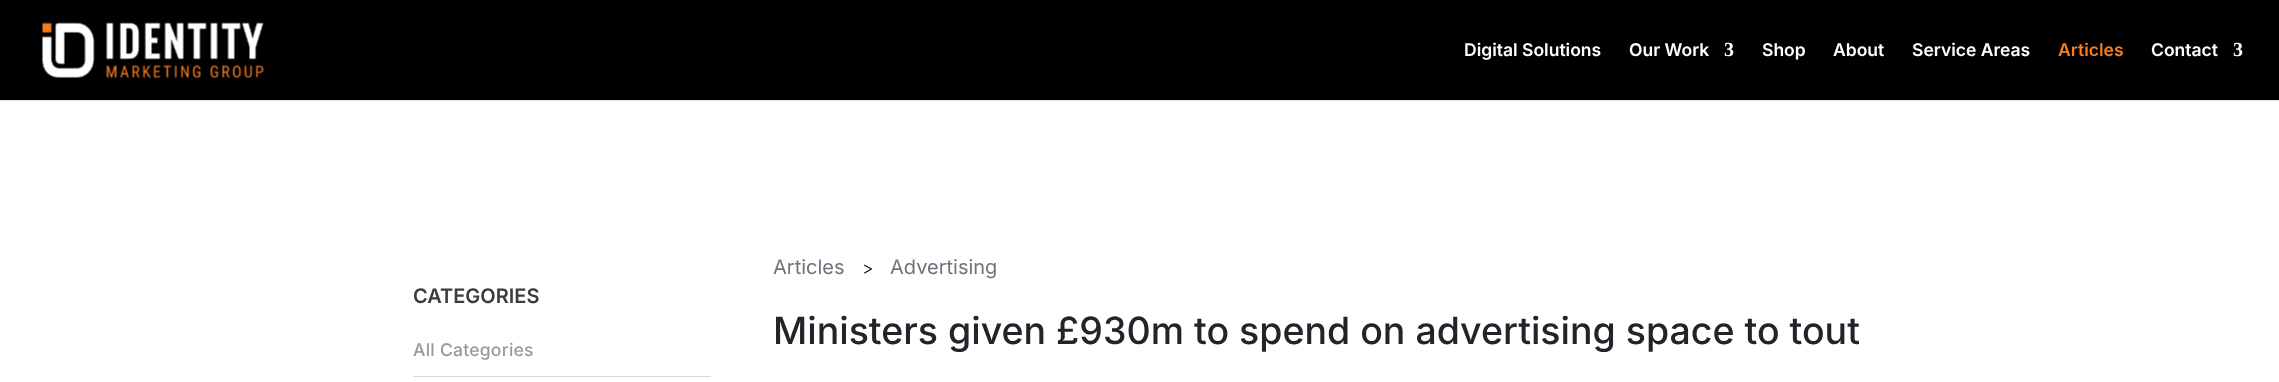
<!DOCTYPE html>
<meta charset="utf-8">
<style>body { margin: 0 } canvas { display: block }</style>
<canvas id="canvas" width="2279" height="382"></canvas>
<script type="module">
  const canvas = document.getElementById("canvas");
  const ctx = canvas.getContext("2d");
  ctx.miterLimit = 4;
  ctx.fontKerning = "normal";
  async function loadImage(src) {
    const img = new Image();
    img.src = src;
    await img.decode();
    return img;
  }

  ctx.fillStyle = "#ffffff";
  ctx.fillRect(0, 0, 2279, 382);
  ctx.fillStyle = "#e6e6e6";
  ctx.fillRect(0, 100, 2279, 1);
  ctx.fillStyle = "#000000";
  ctx.fillRect(0, 0, 2279, 100);
  ctx.drawImage(await loadImage("img1.png"), 42, 22, 222, 56);
  ctx.font = "600 17.5px Inter";
  ctx.fillStyle = "#ffffff";
  ctx.fillText("Digital Solutions", 1464, 56);
  ctx.fillText("Our Work", 1629, 56);
  ctx.font = "bold 20px Liberation Serif";
  ctx.fillText("3", 1724, 56);
  ctx.font = "600 17.5px Inter";
  ctx.fillText("Shop", 1762, 56);
  ctx.fillText("About", 1833, 56);
  ctx.fillText("Service Areas", 1912, 56);
  ctx.fillStyle = "#f47d20";
  ctx.fillText("Articles", 2058, 56);
  ctx.fillStyle = "#ffffff";
  ctx.fillText("Contact", 2151, 56);
  ctx.font = "bold 20px Liberation Serif";
  ctx.fillText("3", 2233, 56);
  ctx.font = "600 20px Inter";
  ctx.fillStyle = "#393c40";
  ctx.fillText("CATEGORIES", 413, 303);
  ctx.fillStyle = "#d8d8d8";
  ctx.fillRect(413, 376, 298, 1);
  ctx.letterSpacing = "0.25px";
  ctx.font = "500 17.5px Inter";
  ctx.fillStyle = "#959ba1";
  ctx.fillText("All Categories", 413, 356);
  ctx.letterSpacing = "0px";
  ctx.font = "20px Inter";
  ctx.fillStyle = "#6c757d";
  ctx.fillText("Articles", 773, 274);
  ctx.font = "300 17.5px Inter";
  ctx.fillStyle = "#000000";
  ctx.fillText(">", 862, 274);
  ctx.font = "20px Inter";
  ctx.fillStyle = "#6c757d";
  ctx.fillText("Advertising", 890, 274);
  ctx.font = "500 37.5px Inter";
  ctx.fillStyle = "#212529";
  ctx.fillText("Ministers given £930m to spend on advertising space to tout", 773, 344);
</script>
